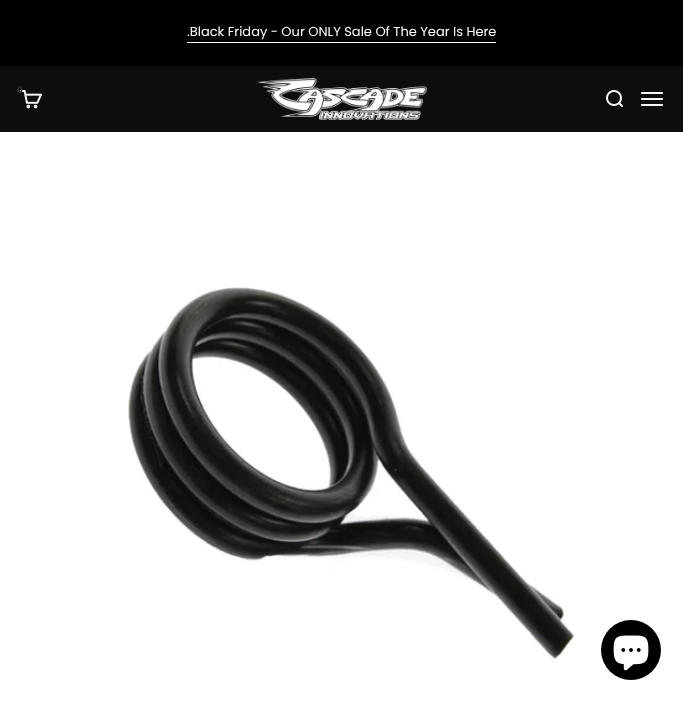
<!DOCTYPE html>
<meta charset="utf-8">
<style>body { margin: 0 } canvas { display: block }</style>
<canvas id="canvas" width="683" height="701"></canvas>
<script type="module">
  const canvas = document.getElementById("canvas");
  const ctx = canvas.getContext("2d");
  ctx.miterLimit = 4;
  ctx.fontKerning = "normal";
  async function loadImage(src) {
    const img = new Image();
    img.src = src;
    await img.decode();
    return img;
  }

  ctx.fillStyle = "#000000";
  ctx.fillRect(0, 0, 683, 701);
  ctx.font = "13px Poppins";
  ctx.fillStyle = "#ffffff";
  ctx.fillText(".Black Friday - Our ONLY Sale Of The Year Is Here", 187, 36);
  ctx.fillRect(187, 42, 309, 1);
  ctx.fillStyle = "#0d0d0d";
  ctx.fillRect(0, 66, 683, 66);
  ctx.drawImage(await loadImage("img1.png"), 20, 90, 22, 19);
  ctx.font = "bold 9px Poppins";
  ctx.fillStyle = "#303030";
  ctx.fillText("0", 17, 93);
  ctx.drawImage(await loadImage("img2.png"), 257, 78, 170, 42);
  ctx.drawImage(await loadImage("img3.png"), 606, 90, 17, 17);
  ctx.drawImage(await loadImage("img4.png"), 641, 92, 22, 14);
  ctx.fillStyle = "#ffffff";
  ctx.fillRect(0, 132, 683, 569);
  ctx.drawImage(await loadImage("img5.png"), 127, 285, 448, 377);
  ctx.fillStyle = "#000000";
  ctx.beginPath();
  ctx.arc(631, 650, 30, 0, Math.PI * 2);
  ctx.fill();
  ctx.drawImage(await loadImage("img6.png"), 613, 635, 36, 36);
</script>
